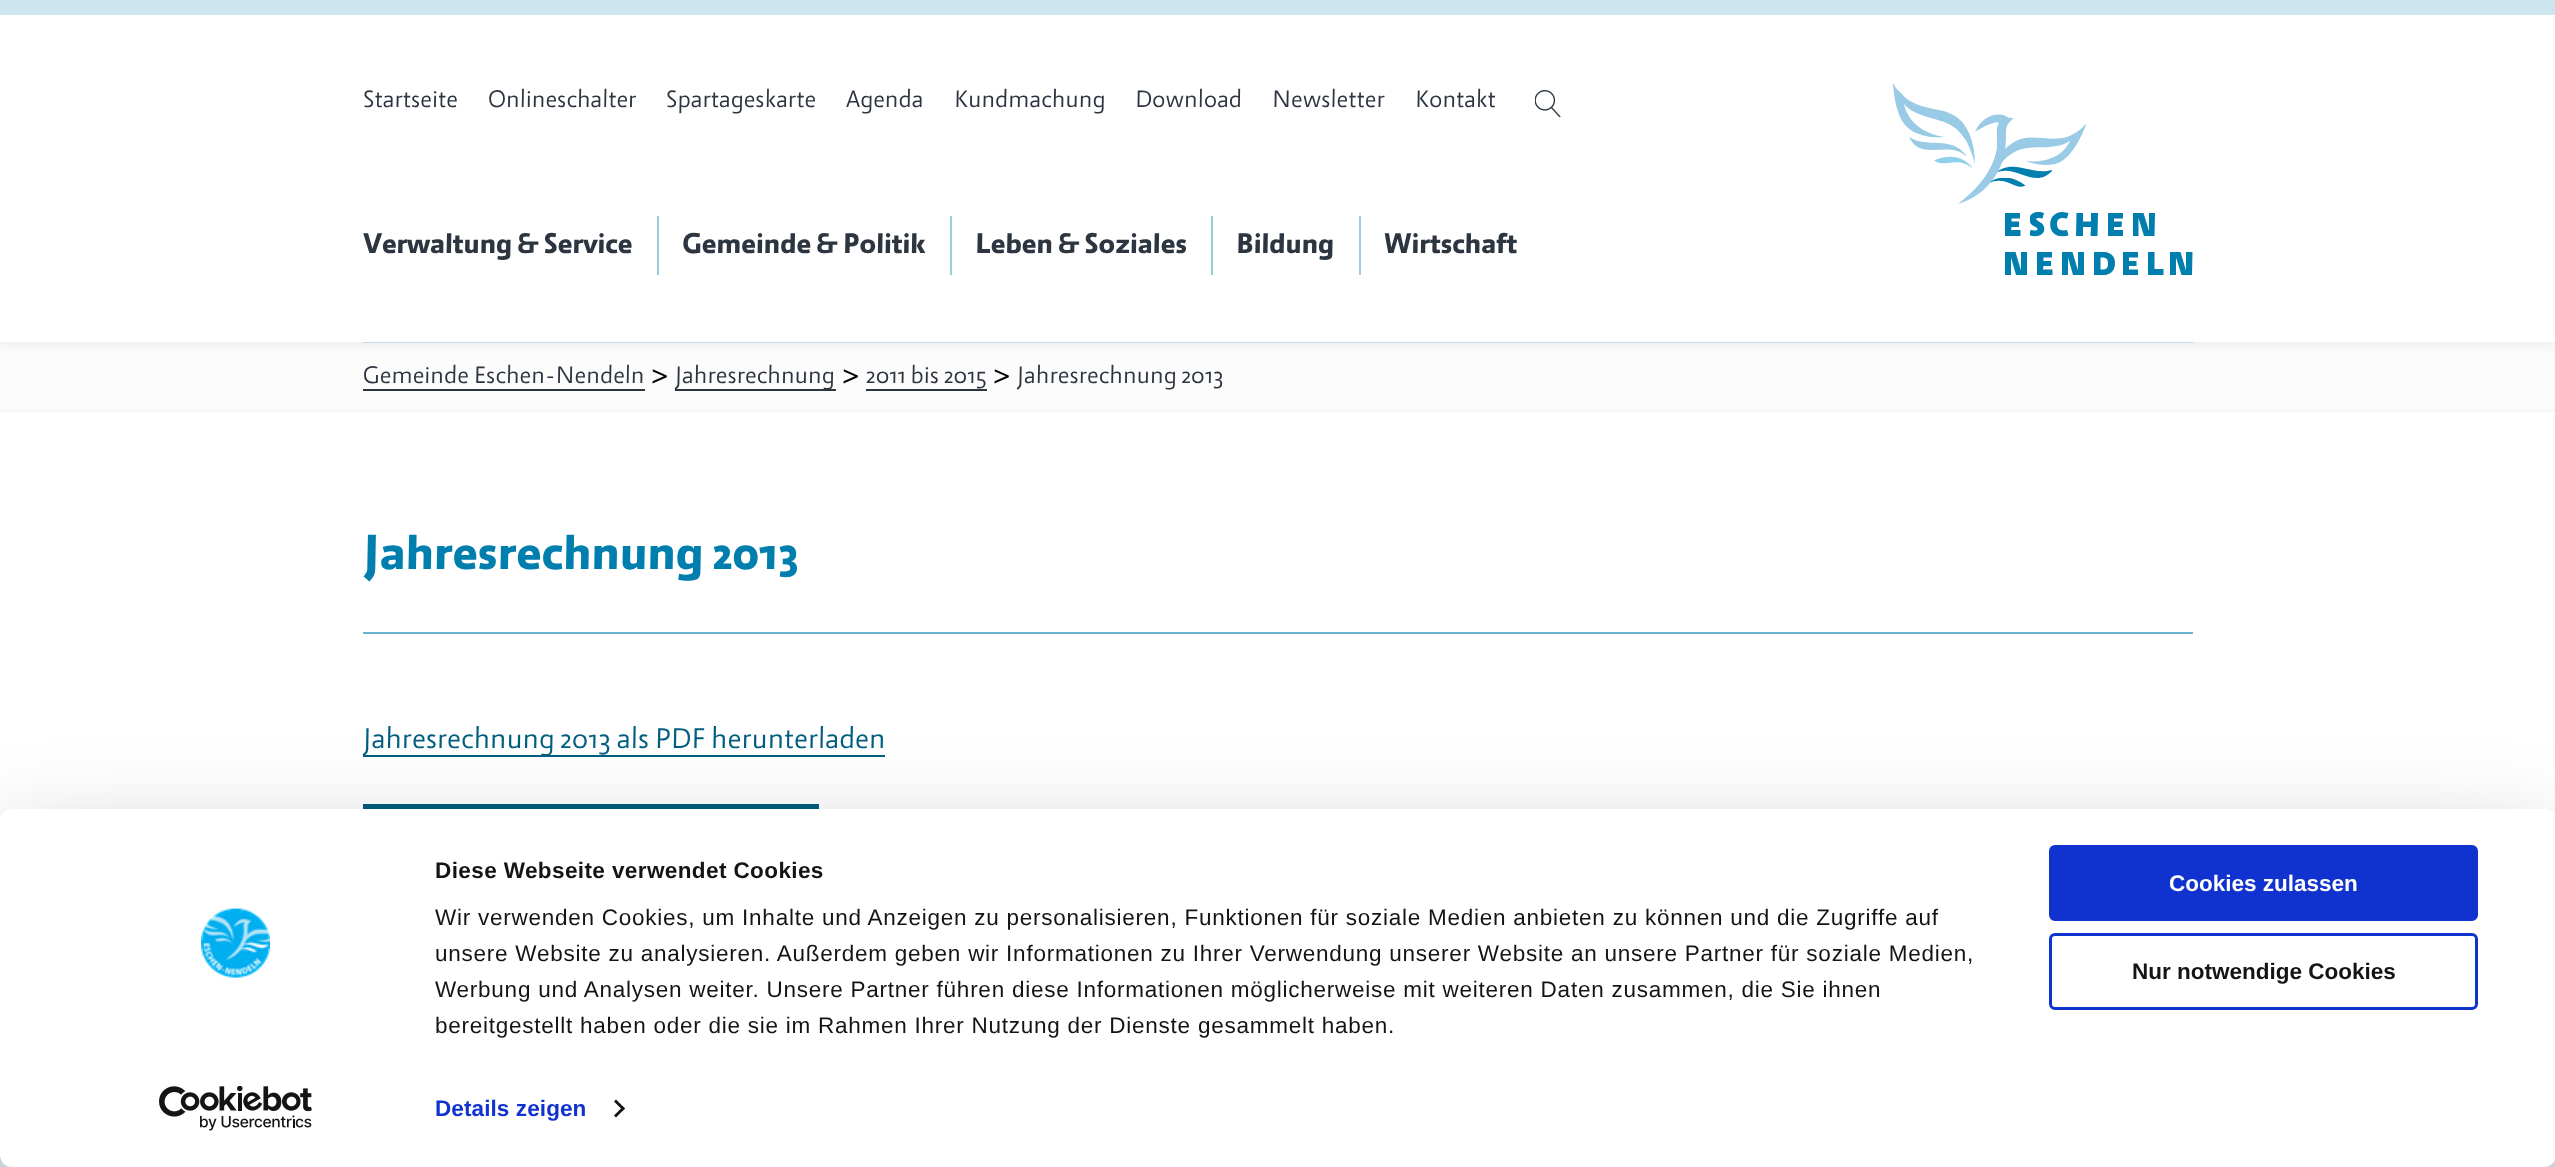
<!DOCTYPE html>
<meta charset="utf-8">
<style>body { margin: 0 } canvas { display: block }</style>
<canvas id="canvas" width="2555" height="1167"></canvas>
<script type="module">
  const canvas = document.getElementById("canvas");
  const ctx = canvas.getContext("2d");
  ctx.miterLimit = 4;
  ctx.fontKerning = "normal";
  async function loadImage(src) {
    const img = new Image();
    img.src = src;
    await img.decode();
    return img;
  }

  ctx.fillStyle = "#ffffff";
  ctx.fillRect(0, 0, 2555, 1167);
  ctx.fillStyle = "#f7f7f7";
  ctx.fillRect(0, 411, 2555, 1);
  ctx.fillStyle = "#fcfcfc";
  ctx.fillRect(0, 342, 2555, 68);
  ctx.fillStyle = "rgba(0, 0, 0, 0.1)";
  ctx.filter = "blur(7.5px)";
  ctx.beginPath();
  ctx.rect(0, 0, 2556, 342);
  ctx.fill();
  ctx.filter = "none";
  ctx.fillStyle = "#cce5ef";
  ctx.fillRect(0, 0, 2555, 15);
  ctx.fillStyle = "#ffffff";
  ctx.fillRect(0, 15, 2555, 327);
  ctx.font = "italic 25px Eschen";
  ctx.fillStyle = "#2d3541";
  ctx.fillText("Startseite", 363, 107);
  ctx.fillText("Onlineschalter", 488, 107);
  ctx.fillText("Spartageskarte", 666, 107);
  ctx.fillText("Agenda", 846, 107);
  ctx.fillText("Kundmachung", 954, 107);
  ctx.fillText("Download", 1135, 107);
  ctx.fillText("Newsletter", 1272, 107);
  ctx.fillText("Kontakt", 1415, 107);
  ctx.drawImage(await loadImage("img1.png"), 1535, 90, 26, 27);
  ctx.fillStyle = "#99ccdf";
  ctx.fillRect(657, 216, 2, 59);
  ctx.font = "italic bold 30px Eschen";
  ctx.fillStyle = "#2d3541";
  ctx.fillText("Verwaltung & Service", 363, 253);
  ctx.fillStyle = "#99ccdf";
  ctx.fillRect(950, 216, 2, 59);
  ctx.fillStyle = "#2d3541";
  ctx.fillText("Gemeinde & Politik", 682, 253);
  ctx.fillStyle = "#99ccdf";
  ctx.fillRect(1211, 216, 2, 59);
  ctx.fillStyle = "#2d3541";
  ctx.fillText("Leben & Soziales", 975, 253);
  ctx.fillStyle = "#99ccdf";
  ctx.fillRect(1359, 216, 2, 59);
  ctx.fillStyle = "#2d3541";
  ctx.fillText("Bildung", 1236, 253);
  ctx.fillText("Wirtschaft", 1384, 253);
  ctx.fillStyle = "#9acbe6";
  ctx.beginPath();
  ctx.moveTo(1998, 160);
  ctx.lineTo(1990, 178);
  ctx.bezierCurveTo(1994, 172, 1998, 166, 2003, 161);
  ctx.bezierCurveTo(2019, 145, 2030, 148, 2050, 147);
  ctx.bezierCurveTo(2057, 146, 2064, 145, 2070, 141);
  ctx.bezierCurveTo(2062, 158, 2043, 163, 2026, 161);
  ctx.bezierCurveTo(2026, 161, 2047, 170, 2062, 161);
  ctx.bezierCurveTo(2075, 153, 2084, 130, 2086, 125);
  ctx.lineTo(2086, 124);
  ctx.bezierCurveTo(2080, 131, 2070, 137, 2062, 138);
  ctx.bezierCurveTo(2044, 141, 2027, 132, 2011, 144);
  ctx.bezierCurveTo(2005, 148, 2001, 154, 1998, 160);
  ctx.closePath();
  ctx.fill();
  ctx.fillStyle = "#007faf";
  ctx.beginPath();
  ctx.moveTo(1995, 173);
  ctx.bezierCurveTo(2016, 163, 2034, 190, 2052, 171);
  ctx.lineTo(2052, 170);
  ctx.bezierCurveTo(2031, 176, 2015, 158, 1995, 173);
  ctx.closePath();
  ctx.fill();
  ctx.beginPath();
  ctx.moveTo(1988, 183.5);
  ctx.bezierCurveTo(1998.5, 178.5, 2005.5, 181.5, 2011.5, 184);
  ctx.bezierCurveTo(2016, 186, 2020.5, 188, 2025.5, 185.5);
  ctx.bezierCurveTo(2020, 181.5, 2015, 179, 2010, 178);
  ctx.lineTo(1999, 178);
  ctx.bezierCurveTo(1992, 179.5, 1988, 183.5, 1988, 183.5);
  ctx.closePath();
  ctx.fill();
  ctx.fillStyle = "#9acbe6";
  ctx.beginPath();
  ctx.moveTo(2006, 116);
  ctx.bezierCurveTo(1993, 111, 1980, 120, 1975, 132);
  ctx.bezierCurveTo(1975, 132, 1993, 120, 1999, 123);
  ctx.bezierCurveTo(1996, 127, 1997, 133, 1997, 137);
  ctx.lineTo(1997, 148);
  ctx.bezierCurveTo(1993, 172, 1976, 190, 1958, 204);
  ctx.bezierCurveTo(1982, 197, 1999, 178, 2005, 153);
  ctx.lineTo(2006, 139);
  ctx.bezierCurveTo(2006, 129, 2005, 125, 2014, 118);
  ctx.bezierCurveTo(2009, 118, 2006, 117, 2006, 116);
  ctx.closePath();
  ctx.fill();
  ctx.beginPath();
  ctx.moveTo(1893, 83);
  ctx.bezierCurveTo(1895, 87, 1898, 91, 1902, 94);
  ctx.bezierCurveTo(1905, 98, 1909, 101, 1914, 103);
  ctx.bezierCurveTo(1927, 110, 1943, 108, 1955, 116);
  ctx.bezierCurveTo(1970, 125, 1975, 147, 1975, 164);
  ctx.bezierCurveTo(1973, 156, 1970, 149, 1967, 142);
  ctx.bezierCurveTo(1955, 122, 1943, 122, 1924, 116);
  ctx.bezierCurveTo(1916, 113, 1909, 110, 1904, 104);
  ctx.bezierCurveTo(1908, 123, 1925, 134, 1944, 137);
  ctx.bezierCurveTo(1944, 137, 1919, 140, 1906, 126);
  ctx.bezierCurveTo(1894, 113, 1893, 83, 1893, 83);
  ctx.closePath();
  ctx.fill();
  ctx.beginPath();
  ctx.moveTo(1966, 156);
  ctx.bezierCurveTo(1948, 140, 1921, 162, 1909, 137);
  ctx.bezierCurveTo(1929, 149, 1950, 135, 1966, 155);
  ctx.closePath();
  ctx.fill();
  ctx.fillStyle = "#8ed1e8";
  ctx.beginPath();
  ctx.moveTo(1973, 168.5);
  ctx.bezierCurveTo(1971, 165.5, 1968, 163, 1965, 161);
  ctx.bezierCurveTo(1955.5, 155, 1944, 156, 1934, 160.5);
  ctx.bezierCurveTo(1939, 164, 1943.5, 163.5, 1949, 163);
  ctx.bezierCurveTo(1956, 162, 1963.5, 161, 1973, 168.5);
  ctx.closePath();
  ctx.fill();
  ctx.fillStyle = "#007faf";
  ctx.beginPath();
  ctx.moveTo(2005, 213);
  ctx.lineTo(2020, 213);
  ctx.lineTo(2020, 218.5);
  ctx.lineTo(2011.5, 218.5);
  ctx.lineTo(2011.5, 221.5);
  ctx.lineTo(2019, 221.5);
  ctx.lineTo(2019, 227);
  ctx.lineTo(2011.5, 227);
  ctx.lineTo(2011, 230);
  ctx.lineTo(2020.5, 230);
  ctx.lineTo(2020.5, 236);
  ctx.lineTo(2005, 236);
  ctx.closePath();
  ctx.moveTo(2038.5, 212);
  ctx.bezierCurveTo(2040.5, 212, 2042.5, 212.5, 2044, 213);
  ctx.lineTo(2042.5, 218.5);
  ctx.bezierCurveTo(2041.5, 218, 2034.5, 217, 2036.5, 220);
  ctx.lineTo(2042, 223.5);
  ctx.bezierCurveTo(2045.5, 227, 2045, 233, 2040.5, 235);
  ctx.bezierCurveTo(2038, 236.5, 2033, 236.5, 2030, 235.5);
  ctx.lineTo(2030, 232);
  ctx.lineTo(2030.5, 230);
  ctx.lineTo(2034.5, 230.5);
  ctx.bezierCurveTo(2036.5, 230.5, 2037.5, 230, 2037.5, 229);
  ctx.bezierCurveTo(2037.5, 227, 2032, 226.5, 2030, 222.5);
  ctx.lineTo(2030, 216.5);
  ctx.bezierCurveTo(2031, 214, 2034, 212, 2038.5, 212);
  ctx.closePath();
  ctx.fill();
  ctx.beginPath();
  ctx.moveTo(2062.5, 212);
  ctx.lineTo(2068.5, 213);
  ctx.lineTo(2067, 218.5);
  ctx.bezierCurveTo(2062, 217.5, 2057, 217.5, 2057, 224);
  ctx.bezierCurveTo(2057, 230.5, 2062, 231, 2067, 230);
  ctx.lineTo(2068.5, 235.5);
  ctx.bezierCurveTo(2063.5, 236.5, 2057.5, 237, 2054, 233.5);
  ctx.bezierCurveTo(2049, 229.5, 2049, 219.5, 2053.5, 215.5);
  ctx.bezierCurveTo(2056, 213, 2059, 212, 2062.5, 212);
  ctx.closePath();
  ctx.moveTo(2098, 213);
  ctx.lineTo(2097.5, 236);
  ctx.lineTo(2090.5, 236);
  ctx.lineTo(2091, 227);
  ctx.lineTo(2083, 227);
  ctx.lineTo(2083, 236);
  ctx.lineTo(2076, 236);
  ctx.lineTo(2076.5, 213);
  ctx.lineTo(2083, 213);
  ctx.lineTo(2083, 221.5);
  ctx.lineTo(2091, 221.5);
  ctx.lineTo(2091, 213);
  ctx.closePath();
  ctx.fill();
  ctx.beginPath();
  ctx.moveTo(2108, 213);
  ctx.lineTo(2123, 213);
  ctx.lineTo(2123, 218.5);
  ctx.lineTo(2114, 218.5);
  ctx.lineTo(2114, 221.5);
  ctx.lineTo(2122, 221.5);
  ctx.lineTo(2121.5, 227);
  ctx.lineTo(2114, 227);
  ctx.lineTo(2114, 230);
  ctx.lineTo(2123, 230);
  ctx.lineTo(2123, 236);
  ctx.lineTo(2108, 236);
  ctx.closePath();
  ctx.moveTo(2133, 213);
  ctx.lineTo(2143.5, 213);
  ctx.lineTo(2149, 231);
  ctx.lineTo(2149, 213);
  ctx.lineTo(2155, 213);
  ctx.lineTo(2154.5, 236);
  ctx.lineTo(2144, 236);
  ctx.lineTo(2138.5, 218);
  ctx.lineTo(2138.5, 236);
  ctx.lineTo(2133, 236);
  ctx.closePath();
  ctx.fill();
  ctx.beginPath();
  ctx.moveTo(2005, 252);
  ctx.lineTo(2015.5, 252);
  ctx.lineTo(2021, 270.5);
  ctx.lineTo(2021, 252);
  ctx.lineTo(2027, 252);
  ctx.lineTo(2027, 275);
  ctx.lineTo(2016, 275);
  ctx.lineTo(2011, 257.5);
  ctx.lineTo(2011, 275);
  ctx.lineTo(2005, 275);
  ctx.closePath();
  ctx.moveTo(2037, 252);
  ctx.lineTo(2052, 252);
  ctx.lineTo(2052, 257.5);
  ctx.lineTo(2043.5, 257.5);
  ctx.lineTo(2043.5, 261);
  ctx.lineTo(2051, 261);
  ctx.lineTo(2051, 266);
  ctx.lineTo(2043.5, 266);
  ctx.lineTo(2043, 269.5);
  ctx.lineTo(2052.5, 269.5);
  ctx.lineTo(2052.5, 275);
  ctx.lineTo(2037, 275);
  ctx.closePath();
  ctx.fill();
  ctx.beginPath();
  ctx.moveTo(2062, 252);
  ctx.lineTo(2072.5, 252);
  ctx.lineTo(2078, 270.5);
  ctx.lineTo(2078, 252);
  ctx.lineTo(2084, 252);
  ctx.lineTo(2084, 275);
  ctx.lineTo(2073, 275);
  ctx.lineTo(2068, 257.5);
  ctx.lineTo(2068, 275);
  ctx.lineTo(2062, 275);
  ctx.closePath();
  ctx.fill();
  ctx.beginPath();
  ctx.moveTo(2094, 252);
  ctx.lineTo(2105, 252);
  ctx.bezierCurveTo(2111.5, 253, 2115, 256.5, 2115, 263);
  ctx.bezierCurveTo(2115, 271.5, 2109.5, 274.5, 2105, 275);
  ctx.lineTo(2094, 275);
  ctx.closePath();
  ctx.moveTo(2102.5, 257.5);
  ctx.bezierCurveTo(2106.5, 257.5, 2108, 259.5, 2108, 263.5);
  ctx.bezierCurveTo(2108, 268, 2106.5, 269.5, 2102.5, 269.5);
  ctx.lineTo(2100.5, 269.5);
  ctx.lineTo(2100.5, 257.5);
  ctx.closePath();
  ctx.fill("evenodd");
  ctx.beginPath();
  ctx.moveTo(2123, 252);
  ctx.lineTo(2138, 252);
  ctx.lineTo(2138, 257.5);
  ctx.lineTo(2129, 257.5);
  ctx.lineTo(2129, 261);
  ctx.lineTo(2136.5, 261);
  ctx.lineTo(2136.5, 266);
  ctx.lineTo(2129, 266);
  ctx.lineTo(2129, 269.5);
  ctx.lineTo(2138, 269.5);
  ctx.lineTo(2138, 275);
  ctx.lineTo(2123, 275);
  ctx.closePath();
  ctx.moveTo(2148, 252);
  ctx.lineTo(2154.5, 252);
  ctx.lineTo(2154.5, 269);
  ctx.lineTo(2163.5, 269);
  ctx.lineTo(2163.5, 275);
  ctx.lineTo(2148, 275);
  ctx.closePath();
  ctx.fill();
  ctx.beginPath();
  ctx.moveTo(2170, 259.5);
  ctx.lineTo(2170, 252);
  ctx.lineTo(2180.5, 252);
  ctx.lineTo(2186, 270.5);
  ctx.lineTo(2186, 252);
  ctx.lineTo(2192.5, 252);
  ctx.lineTo(2192, 275);
  ctx.lineTo(2181.5, 275);
  ctx.lineTo(2176, 257.5);
  ctx.lineTo(2176, 275);
  ctx.lineTo(2170, 275);
  ctx.closePath();
  ctx.fill();
  ctx.fillStyle = "rgba(0, 127, 175, 0.2)";
  ctx.fillRect(363, 342, 1830, 1);
  ctx.fillStyle = "#f5f5f5";
  ctx.fillRect(0, 410, 2555, 1);
  ctx.font = "italic 25px Eschen";
  ctx.fillStyle = "#2d3541";
  ctx.fillText("Gemeinde Eschen-Nendeln", 363, 383);
  ctx.fillRect(363, 389, 282, 2);
  ctx.font = "italic 30px Eschen";
  ctx.fillStyle = "#000000";
  ctx.fillText(">", 650, 383);
  ctx.fillStyle = "#2d3541";
  ctx.fillRect(675, 389, 161, 2);
  ctx.font = "italic 25px Eschen";
  ctx.fillText("Jahresrechnung", 675, 383);
  ctx.font = "italic 30px Eschen";
  ctx.fillStyle = "#000000";
  ctx.fillText(">", 841, 383);
  ctx.font = "italic 25px Eschen";
  ctx.fillStyle = "#2d3541";
  ctx.fillText("2011 bis 2015", 866, 383);
  ctx.fillRect(866, 389, 121, 2);
  ctx.font = "italic 30px Eschen";
  ctx.fillStyle = "#000000";
  ctx.fillText(">", 992, 383);
  ctx.font = "italic 25px Eschen";
  ctx.fillStyle = "#2d3541";
  ctx.fillText("Jahresrechnung 2013", 1017, 383);
  ctx.fillStyle = "#66b2cf";
  ctx.fillRect(363, 632, 1830, 2);
  ctx.font = "italic bold 51.75px Eschen";
  ctx.fillStyle = "#007faf";
  ctx.fillText("Jahresrechnung 2013", 363, 569);
  ctx.fillStyle = "#005e80";
  ctx.fillRect(363, 755, 522, 2);
  ctx.font = "italic 30px Eschen";
  ctx.fillText("Jahresrechnung 2013 als PDF herunterladen", 363, 748);
  ctx.fillRect(363, 804, 456, 5);
  ctx.fillStyle = "#e6f3f8";
  ctx.fillRect(0, 1155, 2555, 12);
  ctx.fillStyle = "rgba(0, 0, 0, 0.3)";
  ctx.filter = "blur(52.5px)";
  ctx.beginPath();
  ctx.roundRect(0, 854, 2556, 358, 12);
  ctx.fill();
  ctx.filter = "none";
  ctx.fillStyle = "#ffffff";
  ctx.beginPath();
  ctx.roundRect(0, 809, 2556, 358, 12);
  ctx.fill();
  ctx.drawImage(await loadImage("img2.png"), 201, 908, 69, 70);
  ctx.drawImage(await loadImage("img3.png"), 159, 1086, 153, 45);
  ctx.letterSpacing = "0.4px";
  ctx.font = "bold 22.5px Liberation Sans";
  ctx.fillStyle = "#141414";
  ctx.fillText("Diese Webseite verwendet Cookies", 435, 878);
  ctx.letterSpacing = "0.75px";
  ctx.font = "22.5px Liberation Sans";
  ctx.fillText("Wir verwenden Cookies, um Inhalte und Anzeigen zu personalisieren, Funktionen für soziale Medien anbieten zu können und die Zugriffe auf", 435, 925);
  ctx.fillText("unsere Website zu analysieren. Außerdem geben wir Informationen zu Ihrer Verwendung unserer Website an unsere Partner für soziale Medien,", 435, 961);
  ctx.fillText("Werbung und Analysen weiter. Unsere Partner führen diese Informationen möglicherweise mit weiteren Daten zusammen, die Sie ihnen", 435, 997);
  ctx.fillText("bereitgestellt haben oder die sie im Rahmen Ihrer Nutzung der Dienste gesammelt haben.", 435, 1033);
  ctx.letterSpacing = "0.1px";
  ctx.font = "bold 22.5px Liberation Sans";
  ctx.fillStyle = "#1032cf";
  ctx.fillText("Details zeigen", 435, 1116);
  ctx.fillStyle = "#141414";
  ctx.beginPath();
  ctx.moveTo(616, 1099.5);
  ctx.lineTo(625, 1108.5);
  ctx.lineTo(623, 1110.5);
  ctx.lineTo(614, 1101.5);
  ctx.closePath();
  ctx.fill();
  ctx.beginPath();
  ctx.moveTo(623, 1106.5);
  ctx.lineTo(625, 1108.5);
  ctx.lineTo(616, 1117.5);
  ctx.lineTo(614, 1115.5);
  ctx.closePath();
  ctx.fill();
  ctx.fillStyle = "#1032cf";
  ctx.beginPath();
  ctx.roundRect(2050.5, 846.5, 426, 73, 4.5);
  ctx.fill();
  ctx.strokeStyle = "#1032cf";
  ctx.lineWidth = 3;
  ctx.stroke();
  ctx.letterSpacing = "0px";
  ctx.fillStyle = "#ffffff";
  ctx.fillText("Cookies zulassen", 2169, 891);
  ctx.beginPath();
  ctx.roundRect(2050.5, 934.5, 426, 74, 4.5);
  ctx.stroke();
  ctx.fillStyle = "#141414";
  ctx.fillText("Nur notwendige Cookies", 2132, 979);
</script>
